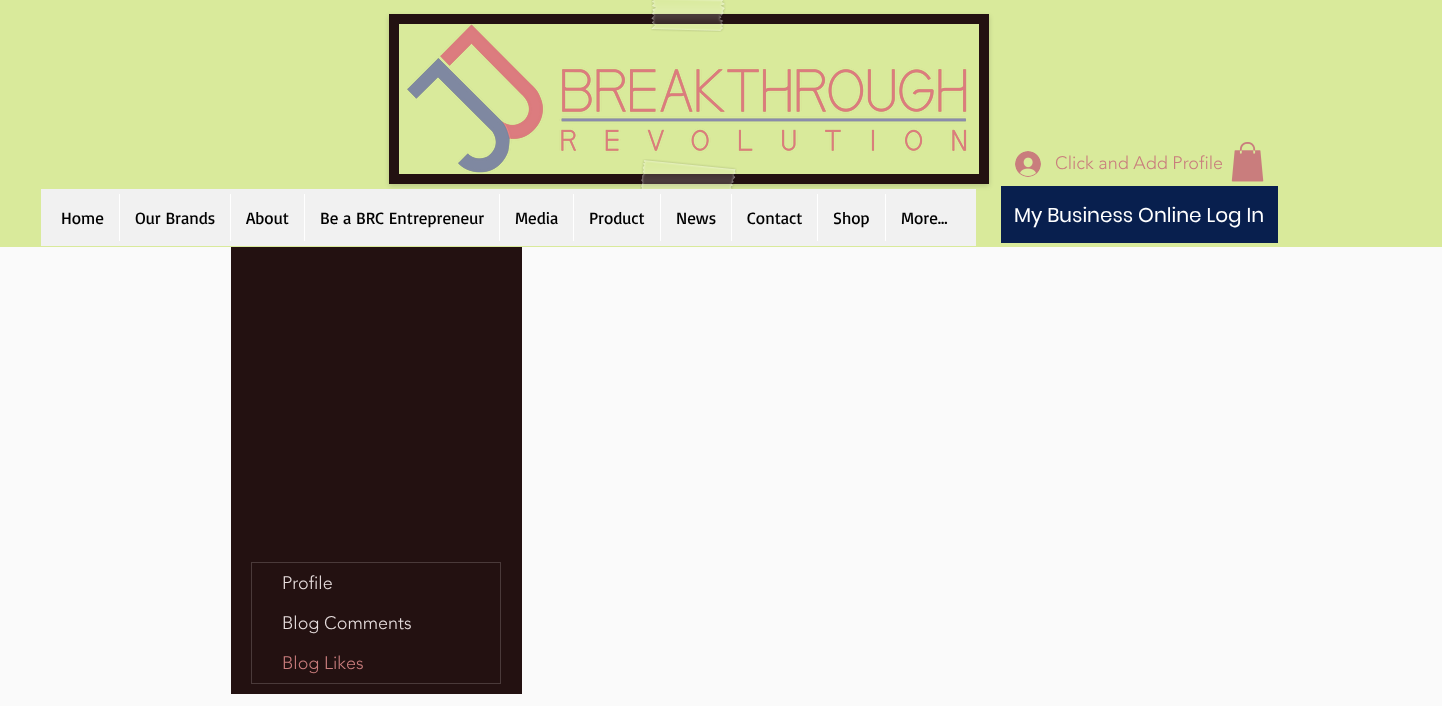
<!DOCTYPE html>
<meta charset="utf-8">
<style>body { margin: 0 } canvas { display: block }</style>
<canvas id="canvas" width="1442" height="706"></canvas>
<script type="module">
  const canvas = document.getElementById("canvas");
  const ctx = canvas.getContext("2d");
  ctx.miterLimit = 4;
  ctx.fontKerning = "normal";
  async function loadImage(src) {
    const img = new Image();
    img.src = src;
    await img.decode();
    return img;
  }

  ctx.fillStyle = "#fafafa";
  ctx.fillRect(0, 0, 1442, 706);
  ctx.fillStyle = "#d9ea9b";
  ctx.fillRect(0, 0, 1442, 247);
  ctx.save();
  ctx.beginPath();
  ctx.moveTo(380, 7);
  ctx.lineTo(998, 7);
  ctx.lineTo(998, 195);
  ctx.lineTo(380, 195);
  ctx.closePath();
  ctx.moveTo(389, 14);
  ctx.lineTo(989, 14);
  ctx.lineTo(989, 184);
  ctx.lineTo(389, 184);
  ctx.closePath();
  ctx.clip("evenodd");
  ctx.fillStyle = "rgba(0, 0, 0, 0.15)";
  ctx.filter = "blur(2.5px)";
  ctx.beginPath();
  ctx.rect(389, 16, 600, 170);
  ctx.fill();
  ctx.filter = "none";
  ctx.restore();
  ctx.strokeStyle = "#231111";
  ctx.lineWidth = 10;
  ctx.strokeRect(394, 19, 590, 160);
  ctx.drawImage(await loadImage("img2.png"), 407, 24, 560, 149);
  ctx.drawImage(await loadImage("img1.png"), 651, 0, 75, 32);
  ctx.drawImage(await loadImage("img3.png"), 640, 159, 97, 30);
  ctx.drawImage(await loadImage("img4.png"), 1015, 151, 26, 26);
  ctx.font = "300 18px 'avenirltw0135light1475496'";
  ctx.fillStyle = "#c97d7d";
  ctx.fillText("Click and Add Profile", 1055, 169);
  ctx.drawImage(await loadImage("img5.png"), 1231, 142, 33, 40);
  ctx.fillStyle = "#f1f1f1";
  ctx.fillRect(41, 189, 935, 57);
  ctx.font = "17px Basic";
  ctx.fillStyle = "#000000";
  ctx.fillText("Home", 61, 224);
  ctx.fillStyle = "#ffffff";
  ctx.fillRect(119, 194, 1, 47);
  ctx.fillStyle = "#000000";
  ctx.fillText("Our Brands", 135, 224);
  ctx.fillStyle = "#ffffff";
  ctx.fillRect(230, 194, 1, 47);
  ctx.fillStyle = "#000000";
  ctx.fillText("About", 246, 224);
  ctx.fillStyle = "#ffffff";
  ctx.fillRect(304, 194, 1, 47);
  ctx.fillStyle = "#000000";
  ctx.fillText("Be a BRC Entrepreneur", 320, 224);
  ctx.fillStyle = "#ffffff";
  ctx.fillRect(499, 194, 1, 47);
  ctx.fillStyle = "#000000";
  ctx.fillText("Media", 515, 224);
  ctx.fillStyle = "#ffffff";
  ctx.fillRect(573, 194, 1, 47);
  ctx.fillStyle = "#000000";
  ctx.fillText("Product", 589, 224);
  ctx.fillStyle = "#ffffff";
  ctx.fillRect(660, 194, 1, 47);
  ctx.fillStyle = "#000000";
  ctx.fillText("News", 676, 224);
  ctx.fillStyle = "#ffffff";
  ctx.fillRect(731, 194, 1, 47);
  ctx.fillStyle = "#000000";
  ctx.fillText("Contact", 747, 224);
  ctx.fillStyle = "#ffffff";
  ctx.fillRect(817, 194, 1, 47);
  ctx.fillStyle = "#000000";
  ctx.fillText("Shop", 833, 224);
  ctx.fillStyle = "#ffffff";
  ctx.fillRect(885, 194, 1, 47);
  ctx.fillStyle = "#000000";
  ctx.fillText("More...", 901, 224);
  ctx.fillStyle = "#081f4e";
  ctx.fillRect(1001, 186, 277, 57);
  ctx.font = "20px Poppins";
  ctx.fillStyle = "#ffffff";
  ctx.fillText("My Business Online Log In", 1014, 222);
  ctx.fillStyle = "#231111";
  ctx.fillRect(231, 247, 291, 447);
  ctx.strokeStyle = "#4a3a3a";
  ctx.lineWidth = 1;
  ctx.strokeRect(251.5, 562.5, 249, 121);
  ctx.font = "300 18px 'avenirltw0135light1475496'";
  ctx.fillStyle = "#e8dfdf";
  ctx.fillText("Profile", 282, 589);
  ctx.fillText("Blog Comments", 282, 629);
  ctx.fillStyle = "#c97d7d";
  ctx.fillText("Blog Likes", 282, 669);
</script>
